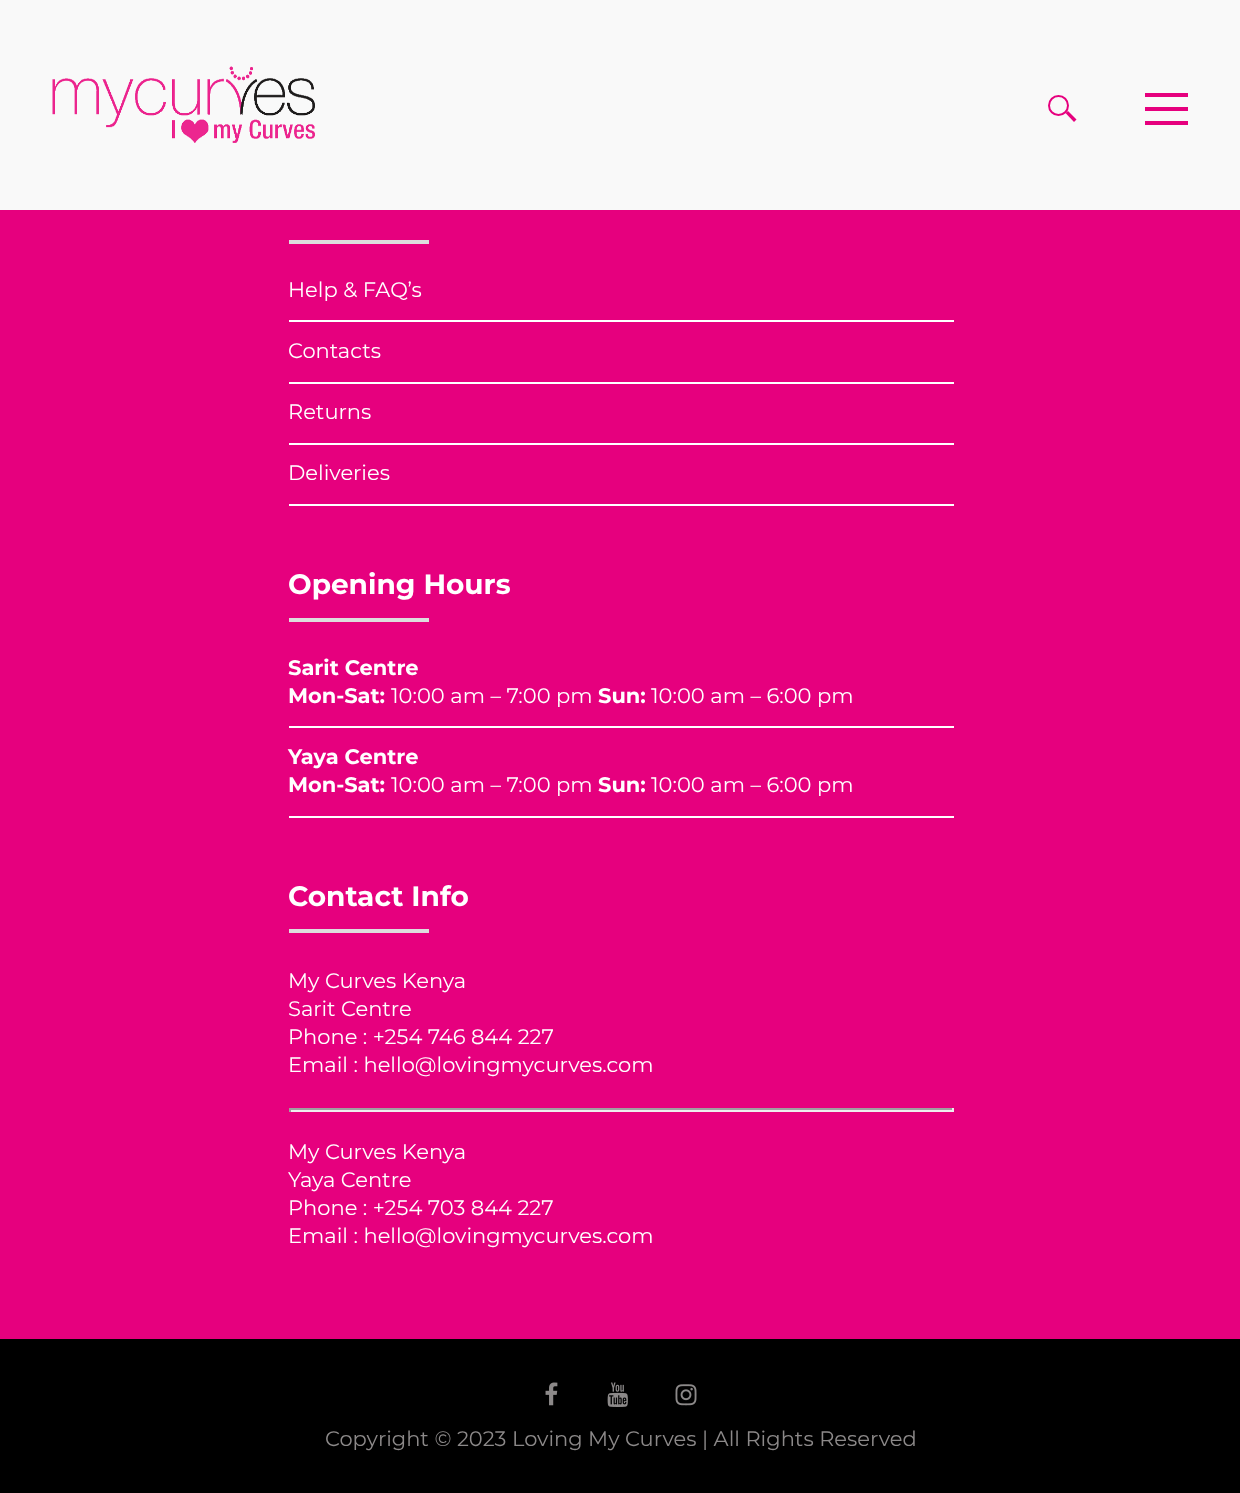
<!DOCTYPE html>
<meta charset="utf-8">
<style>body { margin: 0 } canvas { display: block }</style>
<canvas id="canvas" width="1240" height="1493"></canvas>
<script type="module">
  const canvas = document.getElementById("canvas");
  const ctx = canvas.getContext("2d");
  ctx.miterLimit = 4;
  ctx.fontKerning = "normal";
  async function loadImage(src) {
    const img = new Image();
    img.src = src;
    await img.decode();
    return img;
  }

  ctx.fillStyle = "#e6007e";
  ctx.fillRect(0, 0, 1240, 1493);
  ctx.fillStyle = "#f9f9f9";
  ctx.fillRect(0, 0, 1240, 210);
  ctx.drawImage(await loadImage("img1.png"), 52, 66, 263, 77);
  ctx.fillStyle = "#e6007e";
  ctx.beginPath();
  ctx.moveTo(1065.5, 113);
  ctx.lineTo(1068, 111);
  ctx.lineTo(1076.5, 119.5);
  ctx.lineTo(1074, 122);
  ctx.closePath();
  ctx.fill();
  ctx.beginPath();
  ctx.arc(1058.5, 105.5, 9.5, 0, Math.PI * 2);
  ctx.strokeStyle = "#e6007e";
  ctx.lineWidth = 2;
  ctx.stroke();
  ctx.fillRect(1145, 93, 43, 4);
  ctx.fillRect(1145, 107, 43, 4);
  ctx.fillRect(1145, 121, 43, 4);
  ctx.fillStyle = "#dddddd";
  ctx.fillRect(289, 240, 140, 4);
  ctx.fillStyle = "#ffffff";
  ctx.fillRect(289, 320, 665, 2);
  ctx.font = "21px Montserrat";
  ctx.fillText("Help & FAQ’s", 288, 297);
  ctx.fillRect(289, 382, 665, 2);
  ctx.fillText("Contacts", 288, 358);
  ctx.fillRect(289, 443, 665, 2);
  ctx.fillText("Returns", 288, 419);
  ctx.fillRect(289, 504, 665, 2);
  ctx.fillText("Deliveries", 288, 480);
  ctx.font = "bold 28px Montserrat";
  ctx.fillText("Opening Hours", 288, 594);
  ctx.fillStyle = "#dddddd";
  ctx.fillRect(289, 618, 140, 4);
  ctx.fillStyle = "#ffffff";
  ctx.fillRect(289, 726, 665, 2);
  ctx.font = "bold 21px Montserrat";
  ctx.fillText("Sarit Centre", 288, 675);
  ctx.fillText("Mon-Sat:", 288, 703);
  ctx.font = "21px Montserrat";
  ctx.fillText("10:00 am – 7:00 pm", 391, 703);
  ctx.font = "bold 21px Montserrat";
  ctx.fillText("Sun:", 598, 703);
  ctx.font = "21px Montserrat";
  ctx.fillText("10:00 am – 6:00 pm", 651, 703);
  ctx.fillRect(289, 816, 665, 2);
  ctx.font = "bold 21px Montserrat";
  ctx.fillText("Yaya Centre", 288, 764);
  ctx.fillText("Mon-Sat:", 288, 792);
  ctx.font = "21px Montserrat";
  ctx.fillText("10:00 am – 7:00 pm", 391, 792);
  ctx.font = "bold 21px Montserrat";
  ctx.fillText("Sun:", 598, 792);
  ctx.font = "21px Montserrat";
  ctx.fillText("10:00 am – 6:00 pm", 651, 792);
  ctx.font = "bold 28px Montserrat";
  ctx.fillText("Contact Info", 288, 906);
  ctx.fillStyle = "#dddddd";
  ctx.fillRect(289, 929, 140, 4);
  ctx.font = "21px Montserrat";
  ctx.fillStyle = "#ffffff";
  ctx.fillText("My Curves Kenya", 288, 988);
  ctx.fillText("Sarit Centre", 288, 1016);
  ctx.fillText("Phone : +254 746 844 227", 288, 1044);
  ctx.fillText("Email : hello@lovingmycurves.com", 288, 1072);
  ctx.fillStyle = "#9f9f9f";
  ctx.fillRect(289, 1108, 665, 2);
  ctx.fillStyle = "#eeeeee";
  ctx.fillRect(952, 1108, 2, 4);
  ctx.fillRect(289, 1110, 665, 2);
  ctx.fillStyle = "#9f9f9f";
  ctx.fillRect(289, 1108, 2, 4);
  ctx.fillStyle = "#ffffff";
  ctx.fillText("My Curves Kenya", 288, 1159);
  ctx.fillText("Yaya Centre", 288, 1187);
  ctx.fillText("Phone : +254 703 844 227", 288, 1215);
  ctx.fillText("Email : hello@lovingmycurves.com", 288, 1243);
  ctx.fillStyle = "#000000";
  ctx.fillRect(0, 1339, 1240, 154);
  ctx.drawImage(await loadImage("img2.png"), 545, 1382, 13, 24);
  ctx.drawImage(await loadImage("img3.png"), 607, 1382, 21, 25);
  ctx.drawImage(await loadImage("img4.png"), 675, 1384, 22, 22);
  ctx.fillStyle = "#8c8989";
  ctx.fillText("Copyright © 2023 Loving My Curves | All Rights Reserved", 325, 1446);
</script>
